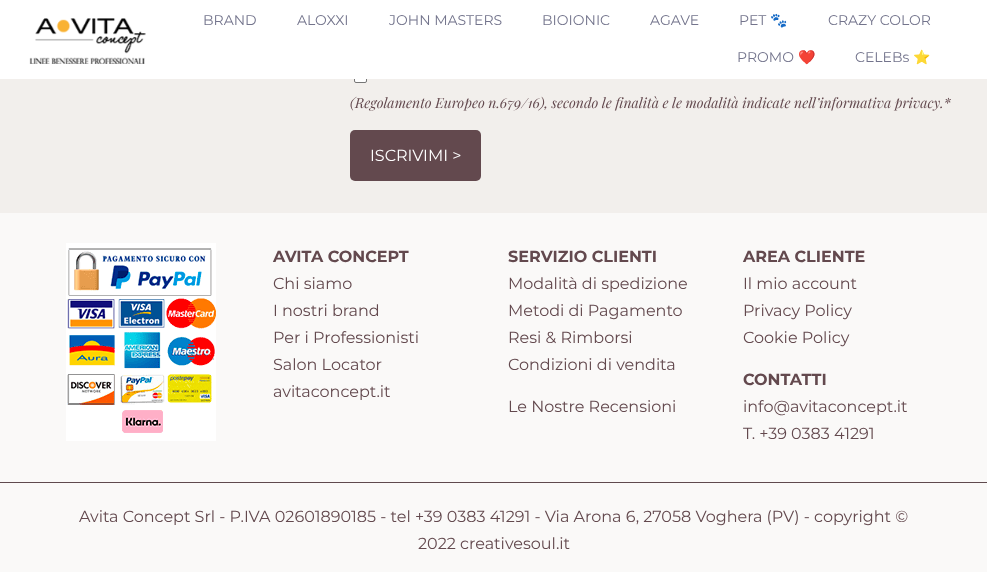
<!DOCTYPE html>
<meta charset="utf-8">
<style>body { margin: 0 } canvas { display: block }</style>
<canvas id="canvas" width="987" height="572"></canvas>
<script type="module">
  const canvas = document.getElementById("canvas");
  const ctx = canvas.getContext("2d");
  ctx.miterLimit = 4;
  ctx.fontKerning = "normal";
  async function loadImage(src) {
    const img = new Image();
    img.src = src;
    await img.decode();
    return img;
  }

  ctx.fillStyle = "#f2efec";
  ctx.fillRect(0, 0, 987, 572);
  ctx.fillStyle = "#ffffff";
  ctx.beginPath();
  ctx.roundRect(354.5, 70.5, 12, 12, 1.5);
  ctx.fill();
  ctx.strokeStyle = "#767676";
  ctx.stroke();
  ctx.fillRect(0, 0, 987, 79);
  ctx.drawImage(await loadImage("img1.png"), 29, 18, 117, 46);
  ctx.font = "14px Montserrat";
  ctx.fillStyle = "#73748c";
  ctx.fillText("BRAND", 203, 25);
  ctx.fillText("ALOXXI", 297, 25);
  ctx.fillText("JOHN MASTERS", 389, 25);
  ctx.fillText("BIOIONIC", 542, 25);
  ctx.fillText("AGAVE", 650, 25);
  ctx.fillText("PET", 739, 25);
  ctx.font = "14px Noto Color Emoji";
  ctx.fillText("🐾", 770, 25);
  ctx.font = "14px Montserrat";
  ctx.fillText("CRAZY COLOR", 828, 25);
  ctx.fillText("PROMO", 737, 62);
  ctx.font = "14px Noto Color Emoji";
  ctx.fillText("❤️", 798, 62);
  ctx.font = "14px Montserrat";
  ctx.fillText("CELEBs", 855, 62);
  ctx.font = "14px Noto Color Emoji";
  ctx.fillText("⭐", 913, 62);
  ctx.font = "italic 14px Playfair Display";
  ctx.fillStyle = "#63494e";
  ctx.fillText("(Regolamento Europeo n.679/16), secondo le finalità e le modalità indicate nell’informativa privacy.*", 350, 108);
  ctx.beginPath();
  ctx.roundRect(350, 130, 131, 51, 5);
  ctx.fill();
  ctx.font = "16px Montserrat";
  ctx.fillStyle = "#ffffff";
  ctx.fillText("ISCRIVIMI >", 370, 161);
  ctx.fillStyle = "#faf9f8";
  ctx.fillRect(0, 213, 987, 269);
  ctx.fillStyle = "#ffffff";
  ctx.fillRect(66, 243, 150, 198);
  ctx.drawImage(await loadImage("img2.png"), 67, 248, 149, 185);
  ctx.font = "bold 16px Montserrat";
  ctx.fillStyle = "#63494e";
  ctx.fillText("AVITA CONCEPT", 273, 262);
  ctx.font = "16px Montserrat";
  ctx.fillText("Chi siamo", 273, 289);
  ctx.fillText("I nostri brand", 273, 316);
  ctx.fillText("Per i Professionisti", 273, 343);
  ctx.fillText("Salon Locator", 273, 370);
  ctx.fillText("avitaconcept.it", 273, 397);
  ctx.font = "bold 16px Montserrat";
  ctx.fillText("SERVIZIO CLIENTI", 508, 262);
  ctx.font = "16px Montserrat";
  ctx.fillText("Modalità di spedizione", 508, 289);
  ctx.fillText("Metodi di Pagamento", 508, 316);
  ctx.fillText("Resi & Rimborsi", 508, 343);
  ctx.fillText("Condizioni di vendita", 508, 370);
  ctx.fillText("Le Nostre Recensioni", 508, 412);
  ctx.font = "bold 16px Montserrat";
  ctx.fillText("AREA CLIENTE", 743, 262);
  ctx.font = "16px Montserrat";
  ctx.fillText("Il mio account", 743, 289);
  ctx.fillText("Privacy Policy", 743, 316);
  ctx.fillText("Cookie Policy", 743, 343);
  ctx.font = "bold 16px Montserrat";
  ctx.fillText("CONTATTI", 743, 385);
  ctx.font = "16px Montserrat";
  ctx.fillText("info@avitaconcept.it", 743, 412);
  ctx.fillText("T. +39 0383 41291", 743, 439);
  ctx.fillStyle = "#faf9f8";
  ctx.fillRect(0, 483, 987, 89);
  ctx.fillStyle = "#5f4a4e";
  ctx.fillRect(0, 482, 987, 1);
  ctx.fillStyle = "#63494e";
  ctx.fillText("Avita Concept Srl - P.IVA 02601890185 - tel +39 0383 41291 - Via Arona 6, 27058 Voghera (PV) - copyright ©", 79, 522);
  ctx.fillText("2022 creativesoul.it", 418, 549);
</script>
